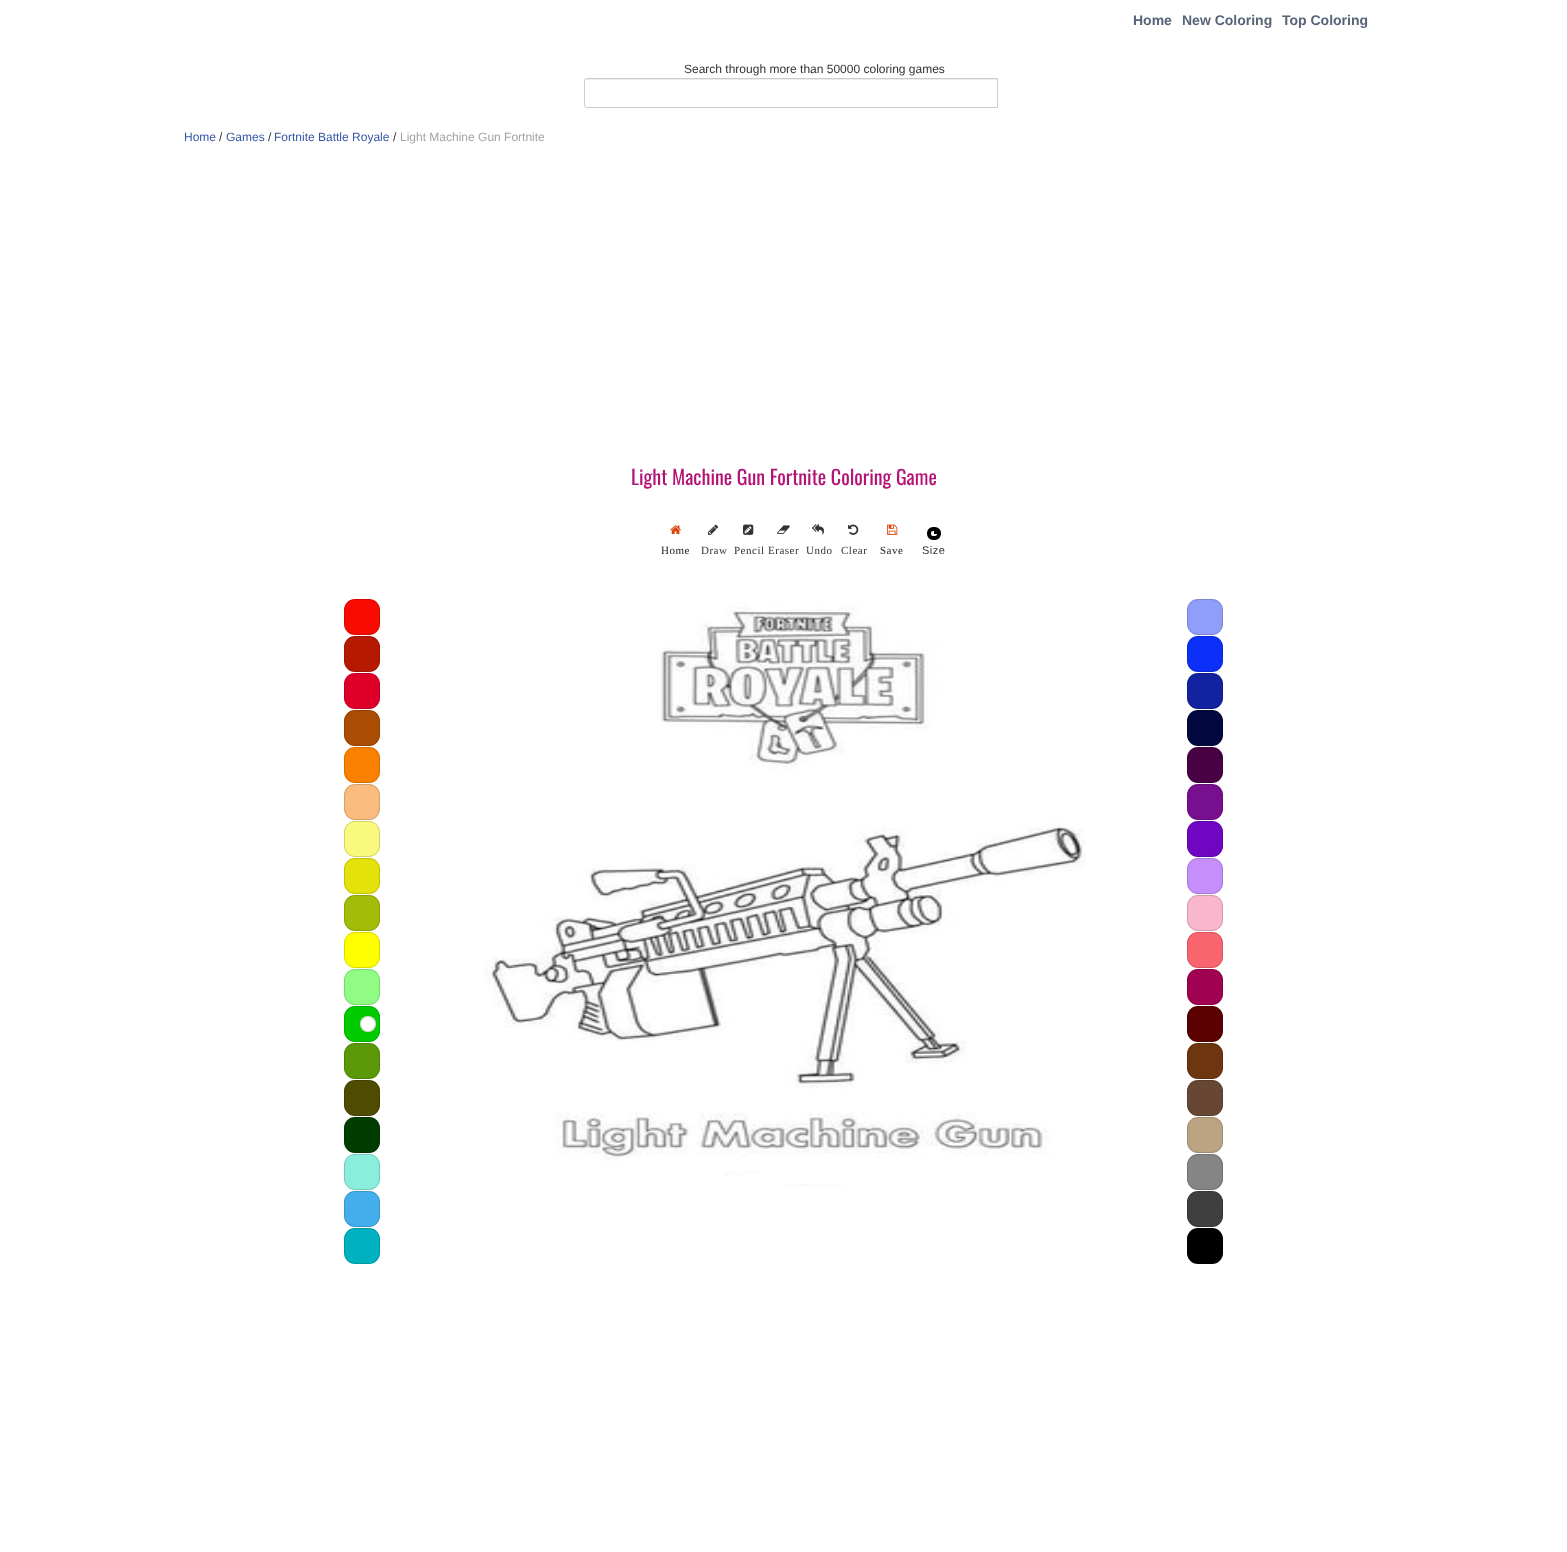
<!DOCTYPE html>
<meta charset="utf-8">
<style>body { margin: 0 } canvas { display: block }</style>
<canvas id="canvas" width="1567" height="1552"></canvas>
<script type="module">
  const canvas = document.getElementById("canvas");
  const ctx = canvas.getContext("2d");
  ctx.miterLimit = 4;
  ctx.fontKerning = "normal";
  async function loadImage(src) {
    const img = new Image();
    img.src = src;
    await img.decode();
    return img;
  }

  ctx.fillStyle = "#ffffff";
  ctx.fillRect(0, 0, 1567, 1552);
  ctx.font = "bold 14px Liberation Sans";
  ctx.fillStyle = "#576376";
  ctx.fillText("Home", 1133, 25);
  ctx.fillText("New Coloring", 1182, 25);
  ctx.fillText("Top Coloring", 1282, 25);
  ctx.font = "12px Liberation Sans";
  ctx.fillStyle = "#333333";
  ctx.fillText("Search through more than 50000 coloring games", 684, 73);
  ctx.fillStyle = "#ececec";
  ctx.beginPath();
  ctx.moveTo(587, 80);
  ctx.lineTo(997, 80);
  ctx.lineTo(997, 79);
  ctx.lineTo(587, 79);
  ctx.bezierCurveTo(585, 79, 585, 81, 585, 82);
  ctx.bezierCurveTo(585, 81, 586, 80, 587, 80);
  ctx.closePath();
  ctx.fill();
  ctx.beginPath();
  ctx.roundRect(584.5, 78.5, 413, 29, [2.5, 0, 0, 2.5]);
  ctx.strokeStyle = "#cccccc";
  ctx.stroke();
  ctx.fillStyle = "#3657a7";
  ctx.fillText("Home", 184, 141);
  ctx.fillStyle = "#333333";
  ctx.fillText("/", 219, 141);
  ctx.fillStyle = "#3657a7";
  ctx.fillText("Games", 226, 141);
  ctx.fillStyle = "#333333";
  ctx.fillText("/", 268, 141);
  ctx.fillStyle = "#3657a7";
  ctx.fillText("Fortnite Battle Royale", 274, 141);
  ctx.fillStyle = "#333333";
  ctx.fillText("/", 393, 141);
  ctx.fillStyle = "#a1a3a6";
  ctx.fillText("Light Machine Gun Fortnite", 400, 141);
  ctx.font = "20px Oswald";
  ctx.fillStyle = "#b41376";
  ctx.fillText("Light Machine Gun Fortnite Coloring Game", 631, 485);
  ctx.drawImage(await loadImage("img1.png"), 670, 525, 11, 9);
  ctx.letterSpacing = "0.5px";
  ctx.font = "11px Liberation Serif";
  ctx.fillStyle = "#222222";
  ctx.fillText("Home", 661, 554);
  ctx.drawImage(await loadImage("img2.png"), 708, 524, 11, 11);
  ctx.fillStyle = "#333333";
  ctx.fillText("Draw", 701, 554);
  ctx.drawImage(await loadImage("img3.png"), 743, 524, 11, 11);
  ctx.fillText("Pencil", 734, 554);
  ctx.drawImage(await loadImage("img4.png"), 777, 525, 13, 9);
  ctx.fillText("Eraser", 768, 554);
  ctx.drawImage(await loadImage("img5.png"), 812, 524, 12, 11);
  ctx.fillText("Undo", 806, 554);
  ctx.drawImage(await loadImage("img6.png"), 848, 524, 11, 11);
  ctx.fillText("Clear", 841, 554);
  ctx.drawImage(await loadImage("img7.png"), 887, 524, 11, 11);
  ctx.fillStyle = "#222222";
  ctx.fillText("Save", 880, 554);
  ctx.beginPath();
  ctx.roundRect(929, 529, 10, 9, 4);
  ctx.strokeStyle = "#000000";
  ctx.lineWidth = 4;
  ctx.stroke();
  ctx.fillStyle = "#000000";
  ctx.fillRect(934, 531, 3, 3);
  ctx.font = "11px Liberation Sans";
  ctx.fillStyle = "#333333";
  ctx.fillText("Size", 922, 554);
  ctx.fillStyle = "#f90b01";
  ctx.beginPath();
  ctx.roundRect(344, 599, 36, 36, 11);
  ctx.fill();
  ctx.beginPath();
  ctx.roundRect(344.5, 599.5, 35, 35, 10.5);
  ctx.strokeStyle = "rgba(0, 0, 0, 0.15)";
  ctx.lineWidth = 1;
  ctx.stroke();
  ctx.fillStyle = "#b51a01";
  ctx.beginPath();
  ctx.roundRect(344, 636, 36, 36, 11);
  ctx.fill();
  ctx.beginPath();
  ctx.roundRect(344.5, 636.5, 35, 35, 10.5);
  ctx.stroke();
  ctx.fillStyle = "#df0029";
  ctx.beginPath();
  ctx.roundRect(344, 673, 36, 36, 11);
  ctx.fill();
  ctx.beginPath();
  ctx.roundRect(344.5, 673.5, 35, 35, 10.5);
  ctx.stroke();
  ctx.fillStyle = "#a84d02";
  ctx.beginPath();
  ctx.roundRect(344, 710, 36, 36, 11);
  ctx.fill();
  ctx.beginPath();
  ctx.roundRect(344.5, 710.5, 35, 35, 10.5);
  ctx.stroke();
  ctx.fillStyle = "#f98001";
  ctx.beginPath();
  ctx.roundRect(344, 747, 36, 36, 11);
  ctx.fill();
  ctx.beginPath();
  ctx.roundRect(344.5, 747.5, 35, 35, 10.5);
  ctx.stroke();
  ctx.fillStyle = "#f9bc7e";
  ctx.beginPath();
  ctx.roundRect(344, 784, 36, 36, 11);
  ctx.fill();
  ctx.beginPath();
  ctx.roundRect(344.5, 784.5, 35, 35, 10.5);
  ctx.stroke();
  ctx.fillStyle = "#f9f97e";
  ctx.beginPath();
  ctx.roundRect(344, 821, 36, 36, 11);
  ctx.fill();
  ctx.beginPath();
  ctx.roundRect(344.5, 821.5, 35, 35, 10.5);
  ctx.stroke();
  ctx.fillStyle = "#e4e20b";
  ctx.beginPath();
  ctx.roundRect(344, 858, 36, 36, 11);
  ctx.fill();
  ctx.beginPath();
  ctx.roundRect(344.5, 858.5, 35, 35, 10.5);
  ctx.stroke();
  ctx.fillStyle = "#a3bc08";
  ctx.beginPath();
  ctx.roundRect(344, 895, 36, 36, 11);
  ctx.fill();
  ctx.beginPath();
  ctx.roundRect(344.5, 895.5, 35, 35, 10.5);
  ctx.stroke();
  ctx.fillStyle = "#ffff00";
  ctx.beginPath();
  ctx.roundRect(344, 932, 36, 36, 11);
  ctx.fill();
  ctx.beginPath();
  ctx.roundRect(344.5, 932.5, 35, 35, 10.5);
  ctx.stroke();
  ctx.fillStyle = "#90fc84";
  ctx.beginPath();
  ctx.roundRect(344, 969, 36, 36, 11);
  ctx.fill();
  ctx.beginPath();
  ctx.roundRect(344.5, 969.5, 35, 35, 10.5);
  ctx.stroke();
  ctx.fillStyle = "#03cb01";
  ctx.beginPath();
  ctx.roundRect(344, 1006, 36, 36, 11);
  ctx.fill();
  ctx.beginPath();
  ctx.roundRect(344.5, 1006.5, 35, 35, 10.5);
  ctx.stroke();
  ctx.fillStyle = "#ffffff";
  ctx.beginPath();
  ctx.arc(368, 1024, 8, 0, Math.PI * 2);
  ctx.fill();
  ctx.beginPath();
  ctx.arc(368, 1024, 7.5, 0, Math.PI * 2);
  ctx.stroke();
  ctx.fillStyle = "#5b9908";
  ctx.beginPath();
  ctx.roundRect(344, 1043, 36, 36, 11);
  ctx.fill();
  ctx.beginPath();
  ctx.roundRect(344.5, 1043.5, 35, 35, 10.5);
  ctx.stroke();
  ctx.fillStyle = "#4e4c01";
  ctx.beginPath();
  ctx.roundRect(344, 1080, 36, 36, 11);
  ctx.fill();
  ctx.beginPath();
  ctx.roundRect(344.5, 1080.5, 35, 35, 10.5);
  ctx.stroke();
  ctx.fillStyle = "#013d01";
  ctx.beginPath();
  ctx.roundRect(344, 1117, 36, 36, 11);
  ctx.fill();
  ctx.beginPath();
  ctx.roundRect(344.5, 1117.5, 35, 35, 10.5);
  ctx.stroke();
  ctx.fillStyle = "#8beddc";
  ctx.beginPath();
  ctx.roundRect(344, 1154, 36, 36, 11);
  ctx.fill();
  ctx.beginPath();
  ctx.roundRect(344.5, 1154.5, 35, 35, 10.5);
  ctx.stroke();
  ctx.fillStyle = "#43aeeb";
  ctx.beginPath();
  ctx.roundRect(344, 1191, 36, 36, 11);
  ctx.fill();
  ctx.beginPath();
  ctx.roundRect(344.5, 1191.5, 35, 35, 10.5);
  ctx.stroke();
  ctx.fillStyle = "#00b2bf";
  ctx.beginPath();
  ctx.roundRect(344, 1228, 36, 36, 11);
  ctx.fill();
  ctx.beginPath();
  ctx.roundRect(344.5, 1228.5, 35, 35, 10.5);
  ctx.stroke();
  ctx.drawImage(await loadImage("img8.png"), 484, 602, 602, 585);
  ctx.fillStyle = "#8f9ef9";
  ctx.beginPath();
  ctx.roundRect(1187, 599, 36, 36, 11);
  ctx.fill();
  ctx.beginPath();
  ctx.roundRect(1187.5, 599.5, 35, 35, 10.5);
  ctx.stroke();
  ctx.fillStyle = "#0d30f9";
  ctx.beginPath();
  ctx.roundRect(1187, 636, 36, 36, 11);
  ctx.fill();
  ctx.beginPath();
  ctx.roundRect(1187.5, 636.5, 35, 35, 10.5);
  ctx.stroke();
  ctx.fillStyle = "#13229e";
  ctx.beginPath();
  ctx.roundRect(1187, 673, 36, 36, 11);
  ctx.fill();
  ctx.beginPath();
  ctx.roundRect(1187.5, 673.5, 35, 35, 10.5);
  ctx.stroke();
  ctx.fillStyle = "#01083f";
  ctx.beginPath();
  ctx.roundRect(1187, 710, 36, 36, 11);
  ctx.fill();
  ctx.beginPath();
  ctx.roundRect(1187.5, 710.5, 35, 35, 10.5);
  ctx.stroke();
  ctx.fillStyle = "#480143";
  ctx.beginPath();
  ctx.roundRect(1187, 747, 36, 36, 11);
  ctx.fill();
  ctx.beginPath();
  ctx.roundRect(1187.5, 747.5, 35, 35, 10.5);
  ctx.stroke();
  ctx.fillStyle = "#780f8f";
  ctx.beginPath();
  ctx.roundRect(1187, 784, 36, 36, 11);
  ctx.fill();
  ctx.beginPath();
  ctx.roundRect(1187.5, 784.5, 35, 35, 10.5);
  ctx.stroke();
  ctx.fillStyle = "#6f06c1";
  ctx.beginPath();
  ctx.roundRect(1187, 821, 36, 36, 11);
  ctx.fill();
  ctx.beginPath();
  ctx.roundRect(1187.5, 821.5, 35, 35, 10.5);
  ctx.stroke();
  ctx.fillStyle = "#c58efb";
  ctx.beginPath();
  ctx.roundRect(1187, 858, 36, 36, 11);
  ctx.fill();
  ctx.beginPath();
  ctx.roundRect(1187.5, 858.5, 35, 35, 10.5);
  ctx.stroke();
  ctx.fillStyle = "#f9b7ce";
  ctx.beginPath();
  ctx.roundRect(1187, 895, 36, 36, 11);
  ctx.fill();
  ctx.beginPath();
  ctx.roundRect(1187.5, 895.5, 35, 35, 10.5);
  ctx.stroke();
  ctx.fillStyle = "#f9656f";
  ctx.beginPath();
  ctx.roundRect(1187, 932, 36, 36, 11);
  ctx.fill();
  ctx.beginPath();
  ctx.roundRect(1187.5, 932.5, 35, 35, 10.5);
  ctx.stroke();
  ctx.fillStyle = "#a10151";
  ctx.beginPath();
  ctx.roundRect(1187, 969, 36, 36, 11);
  ctx.fill();
  ctx.beginPath();
  ctx.roundRect(1187.5, 969.5, 35, 35, 10.5);
  ctx.stroke();
  ctx.fillStyle = "#5b0101";
  ctx.beginPath();
  ctx.roundRect(1187, 1006, 36, 36, 11);
  ctx.fill();
  ctx.beginPath();
  ctx.roundRect(1187.5, 1006.5, 35, 35, 10.5);
  ctx.stroke();
  ctx.fillStyle = "#6e3511";
  ctx.beginPath();
  ctx.roundRect(1187, 1043, 36, 36, 11);
  ctx.fill();
  ctx.beginPath();
  ctx.roundRect(1187.5, 1043.5, 35, 35, 10.5);
  ctx.stroke();
  ctx.fillStyle = "#674733";
  ctx.beginPath();
  ctx.roundRect(1187, 1080, 36, 36, 11);
  ctx.fill();
  ctx.beginPath();
  ctx.roundRect(1187.5, 1080.5, 35, 35, 10.5);
  ctx.stroke();
  ctx.fillStyle = "#bca383";
  ctx.beginPath();
  ctx.roundRect(1187, 1117, 36, 36, 11);
  ctx.fill();
  ctx.beginPath();
  ctx.roundRect(1187.5, 1117.5, 35, 35, 10.5);
  ctx.stroke();
  ctx.fillStyle = "#858585";
  ctx.beginPath();
  ctx.roundRect(1187, 1154, 36, 36, 11);
  ctx.fill();
  ctx.beginPath();
  ctx.roundRect(1187.5, 1154.5, 35, 35, 10.5);
  ctx.stroke();
  ctx.fillStyle = "#3f3f3f";
  ctx.beginPath();
  ctx.roundRect(1187, 1191, 36, 36, 11);
  ctx.fill();
  ctx.beginPath();
  ctx.roundRect(1187.5, 1191.5, 35, 35, 10.5);
  ctx.stroke();
  ctx.fillStyle = "#000000";
  ctx.beginPath();
  ctx.roundRect(1187, 1228, 36, 36, 11);
  ctx.fill();
  ctx.beginPath();
  ctx.roundRect(1187.5, 1228.5, 35, 35, 10.5);
  ctx.stroke();
</script>
